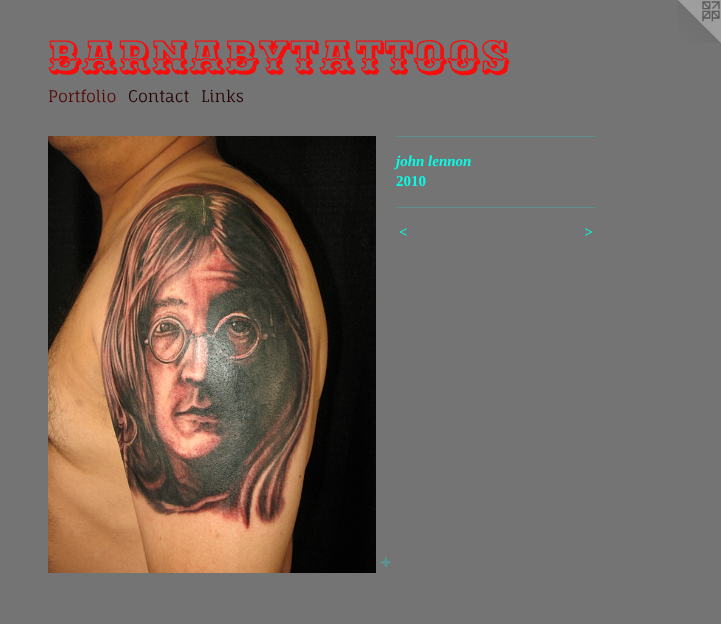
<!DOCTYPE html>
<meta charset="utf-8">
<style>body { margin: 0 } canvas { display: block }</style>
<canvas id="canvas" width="721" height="624"></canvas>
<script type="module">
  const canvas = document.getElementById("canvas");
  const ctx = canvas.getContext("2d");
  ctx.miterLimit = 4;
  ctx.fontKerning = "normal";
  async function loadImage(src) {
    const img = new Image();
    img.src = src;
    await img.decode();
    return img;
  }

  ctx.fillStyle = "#747474";
  ctx.fillRect(0, 0, 721, 624);
  ctx.drawImage(await loadImage("img1.png"), 678, 0, 43, 43);
  ctx.font = "45px Ewert";
  ctx.fillStyle = "#f80d0d";
  ctx.fillText("Barnabytattoos", 48, 72);
  ctx.font = "16px Fauna One";
  ctx.fillStyle = "#550707";
  ctx.fillText("Portfolio", 48, 102);
  ctx.fillStyle = "#260303";
  ctx.fillText("Contact", 128, 102);
  ctx.fillText("Links", 201, 102);
  ctx.drawImage(await loadImage("img2.png"), 48, 136, 328, 437);
  ctx.drawImage(await loadImage("img3.png"), 381, 557, 10, 10);
  ctx.fillStyle = "#5f8f8b";
  ctx.fillRect(396, 136, 200, 1);
  ctx.font = "italic bold 15px Liberation Serif";
  ctx.fillStyle = "#09fbe6";
  ctx.fillText("john lennon", 396, 166);
  ctx.font = "bold 15px Liberation Serif";
  ctx.fillText("2010", 396, 186);
  ctx.fillStyle = "#5f8f8b";
  ctx.fillRect(396, 207, 200, 1);
  ctx.letterSpacing = "1px";
  ctx.font = "italic bold 15px Liberation Serif";
  ctx.fillStyle = "#09fbe6";
  ctx.fillText("<", 399, 237);
  ctx.fillText(">", 584, 237);
</script>
